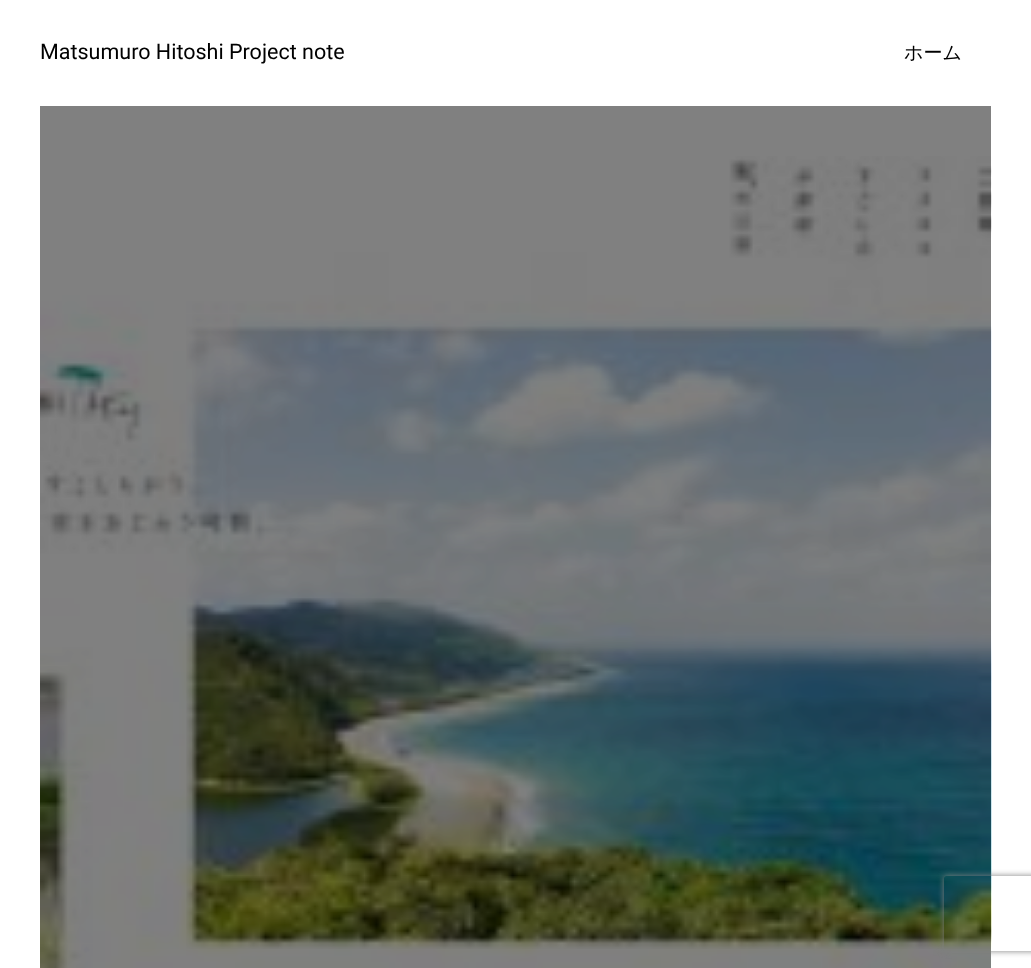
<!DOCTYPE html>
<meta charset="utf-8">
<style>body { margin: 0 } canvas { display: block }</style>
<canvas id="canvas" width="1031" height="968"></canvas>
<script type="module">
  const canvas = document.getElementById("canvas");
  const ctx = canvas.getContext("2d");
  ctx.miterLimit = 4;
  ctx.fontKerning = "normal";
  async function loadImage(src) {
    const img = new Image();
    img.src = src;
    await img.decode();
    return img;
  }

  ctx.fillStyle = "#ffffff";
  ctx.fillRect(0, 0, 1031, 968);
  ctx.fillStyle = "#808080";
  ctx.fillRect(40, 106, 951, 50);
  ctx.font = "21.5px Roboto";
  ctx.fillStyle = "#000000";
  ctx.fillText("Matsumuro Hitoshi Project note", 40, 59);
  ctx.font = "500 19px WenQuanYi Zen Hei";
  ctx.fillText("ホーム", 904, 59);
  ctx.drawImage(await loadImage("img1.png"), 40, 156, 952, 812);
  ctx.save();
  ctx.beginPath();
  ctx.moveTo(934, 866);
  ctx.lineTo(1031, 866);
  ctx.lineTo(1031, 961);
  ctx.lineTo(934, 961);
  ctx.closePath();
  ctx.moveTo(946.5, 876);
  ctx.lineTo(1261.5, 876);
  ctx.bezierCurveTo(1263, 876, 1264, 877, 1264, 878.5);
  ctx.lineTo(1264, 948.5);
  ctx.bezierCurveTo(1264, 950, 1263, 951, 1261.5, 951);
  ctx.lineTo(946.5, 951);
  ctx.bezierCurveTo(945, 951, 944, 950, 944, 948.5);
  ctx.lineTo(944, 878.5);
  ctx.bezierCurveTo(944, 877, 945, 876, 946.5, 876);
  ctx.closePath();
  ctx.clip("evenodd");
  ctx.fillStyle = "#808080";
  ctx.filter = "blur(3px)";
  ctx.beginPath();
  ctx.roundRect(944, 876, 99, 75, 2.5);
  ctx.fill();
  ctx.filter = "none";
  ctx.restore();
</script>
